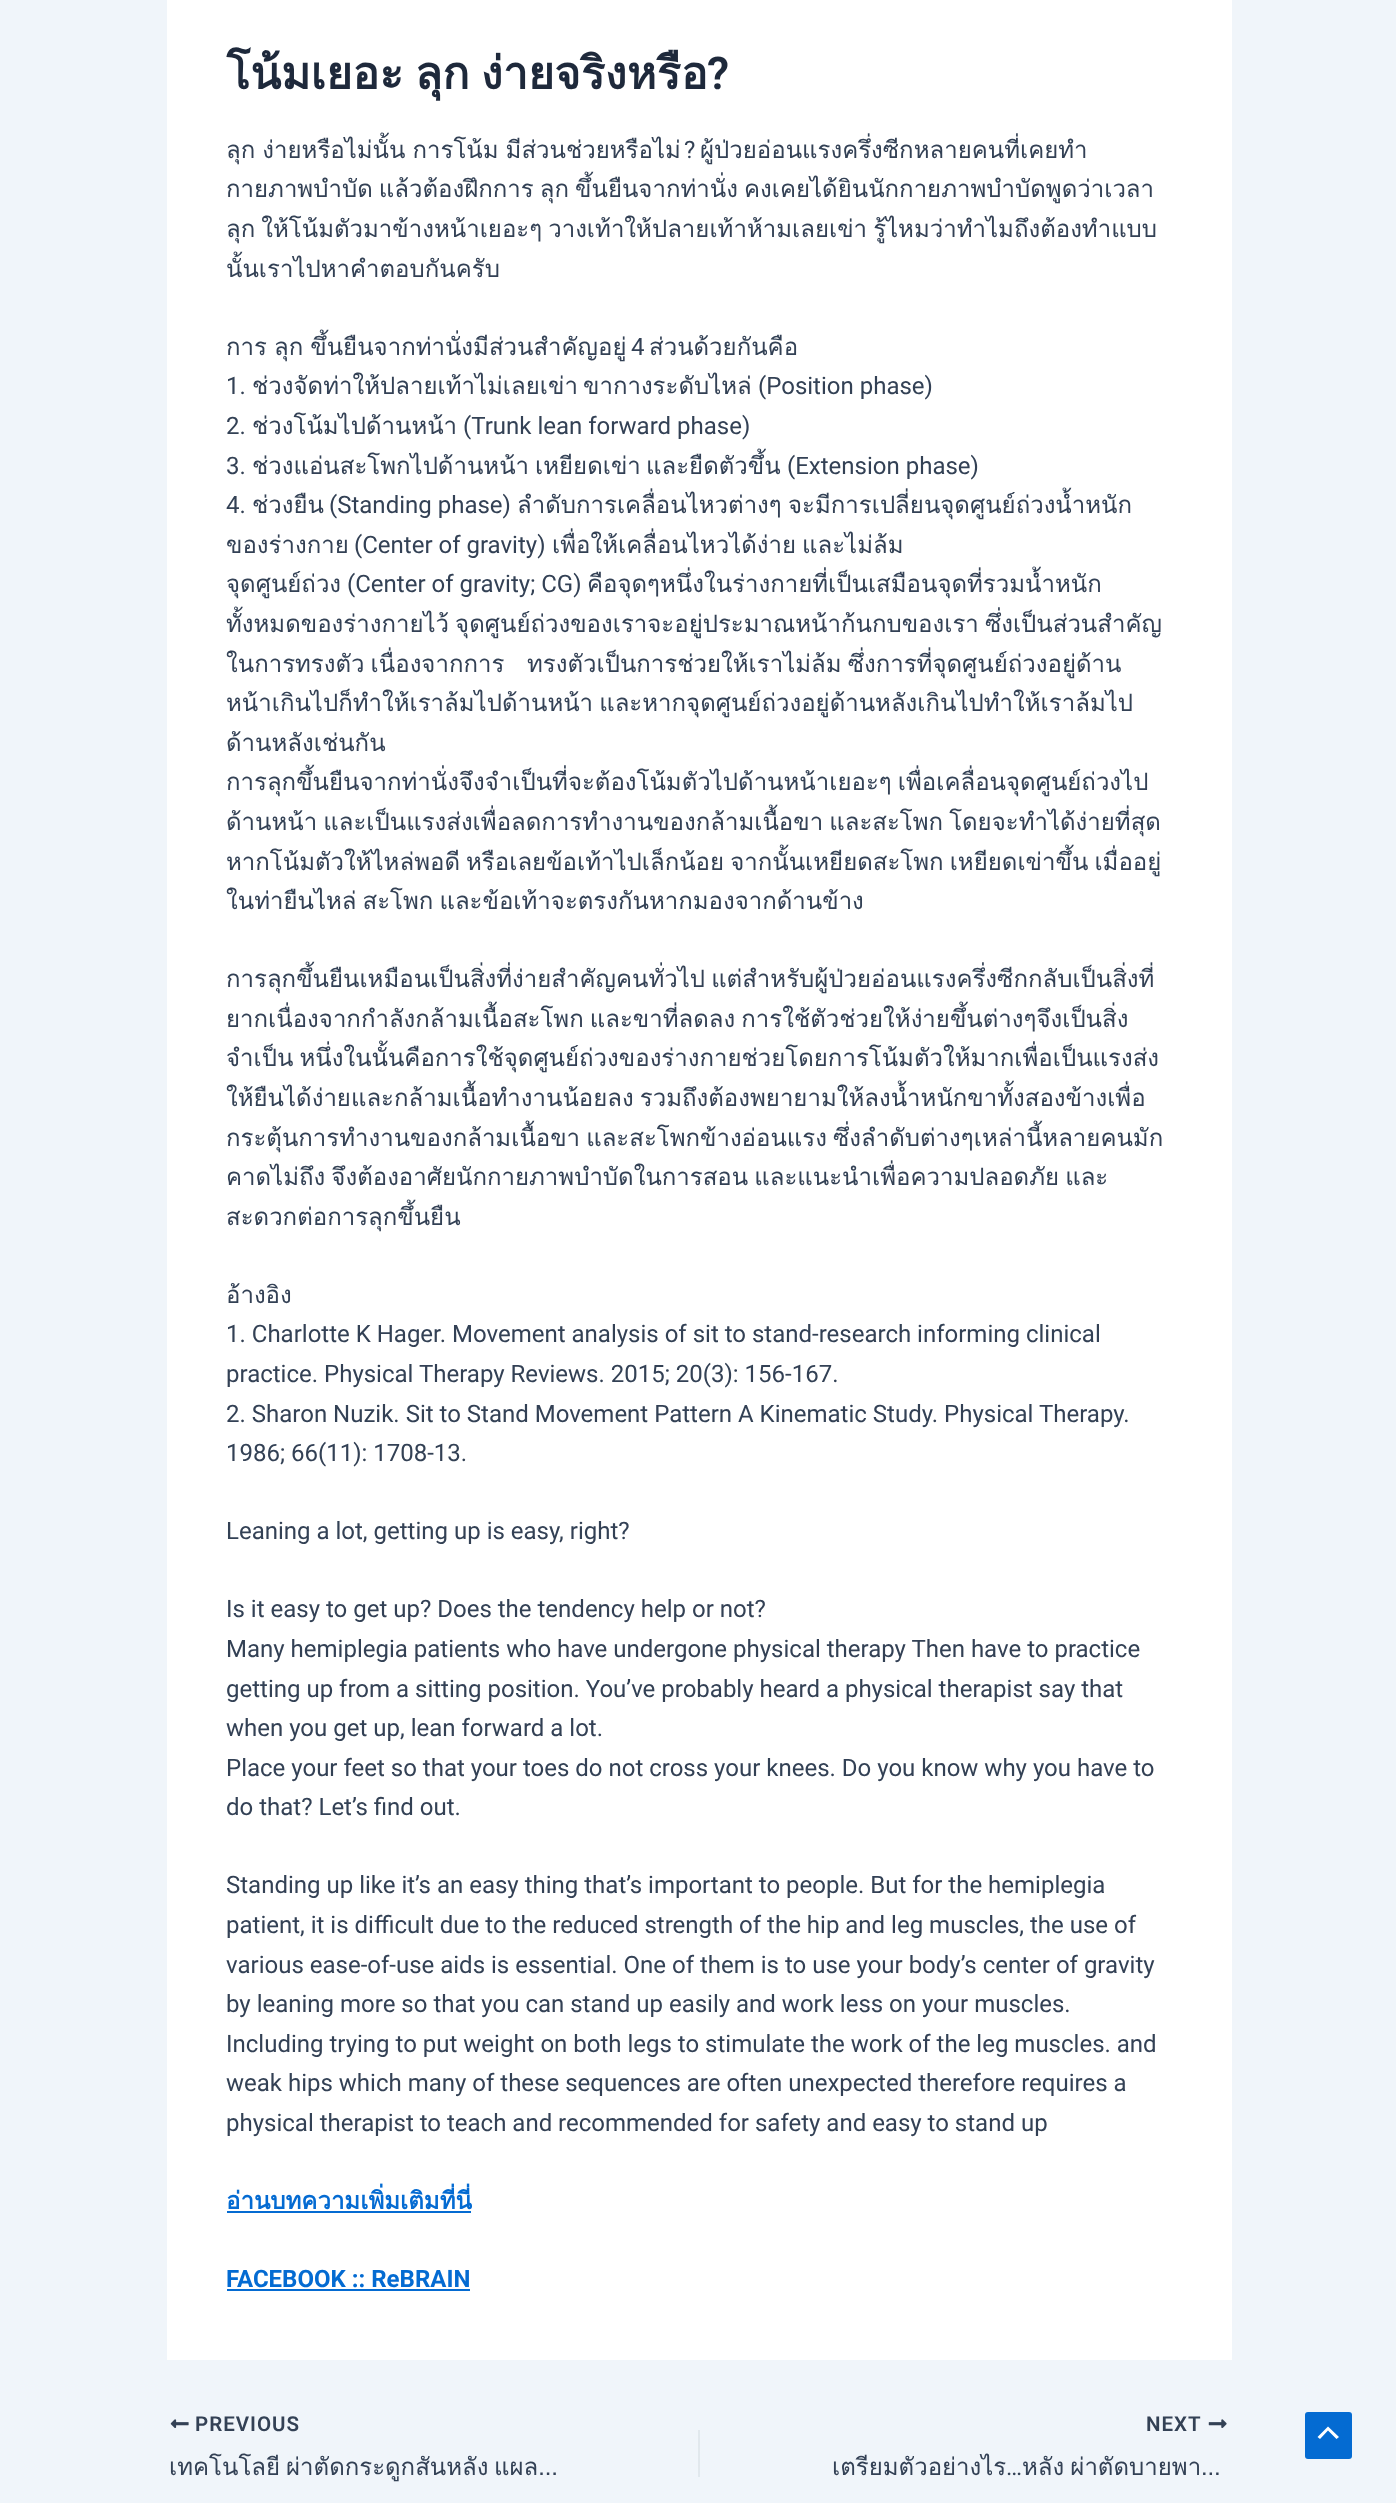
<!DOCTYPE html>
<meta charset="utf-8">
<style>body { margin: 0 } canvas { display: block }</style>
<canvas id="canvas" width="1396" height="2503"></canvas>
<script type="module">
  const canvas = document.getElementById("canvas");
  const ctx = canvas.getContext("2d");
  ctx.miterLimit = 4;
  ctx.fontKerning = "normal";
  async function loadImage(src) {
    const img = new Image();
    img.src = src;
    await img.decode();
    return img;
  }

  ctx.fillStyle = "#f0f5fa";
  ctx.fillRect(0, 0, 1396, 2503);
  ctx.fillStyle = "#ffffff";
  ctx.fillRect(167, 0, 1065, 2360);
  ctx.wordSpacing = "-4px";
  ctx.font = "bold 45px Loma";
  ctx.fillStyle = "#1e293b";
  ctx.fillText("โน้มเยอะ ลุก ง่ายจริงหรือ", 226, 89);
  ctx.wordSpacing = "0px";
  ctx.font = "600 45px Roboto";
  ctx.fillText("?", 707, 89);
  ctx.wordSpacing = "-1px";
  ctx.font = "24px Loma";
  ctx.fillStyle = "#334155";
  ctx.fillText("ลุก ง่ายหรือไม่นั้น การโน้ม มีส่วนช่วยหรือไม่", 226, 158);
  ctx.wordSpacing = "0px";
  ctx.font = "24px Roboto";
  ctx.fillText("?", 684, 158);
  ctx.font = "24px Loma";
  ctx.fillText("ผู้ป่วยอ่อนแรงครึ่งซีกหลายคนที่เคยทำ", 700, 158);
  ctx.wordSpacing = "-2px";
  ctx.fillText("กายภาพบำบัด แล้วต้องฝึกการ ลุก ขึ้นยืนจากท่านั่ง คงเคยได้ยินนักกายภาพบำบัดพูดว่าเวลา", 226, 197);
  ctx.fillText("ลุก ให้โน้มตัวมาข้างหน้าเยอะๆ วางเท้าให้ปลายเท้าห้ามเลยเข่า รู้ไหมว่าทำไมถึงต้องทำแบบ", 226, 237);
  ctx.wordSpacing = "0px";
  ctx.fillText("นั้นเราไปหาคำตอบกันครับ", 226, 277);
  ctx.wordSpacing = "-1px";
  ctx.fillText("การ ลุก ขึ้นยืนจากท่านั่งมีส่วนสำคัญอยู่", 226, 355);
  ctx.wordSpacing = "0px";
  ctx.font = "24px Roboto";
  ctx.fillText("4", 631, 355);
  ctx.font = "24px Loma";
  ctx.fillText("ส่วนด้วยกันคือ", 649, 355);
  ctx.font = "24px Roboto";
  ctx.fillText("1.", 226, 394);
  ctx.font = "24px Loma";
  ctx.fillText("ช่วงจัดท่าให้ปลายเท้าไม่เลยเข่า", 252, 394);
  ctx.fillText("ขากางระดับไหล่", 583, 394);
  ctx.font = "24px Roboto";
  ctx.fillText("(Position phase)", 758, 394);
  ctx.fillText("2.", 226, 434);
  ctx.font = "24px Loma";
  ctx.fillText("ช่วงโน้มไปด้านหน้า", 252, 434);
  ctx.font = "24px Roboto";
  ctx.fillText("(Trunk lean forward phase)", 463, 434);
  ctx.fillText("3.", 226, 474);
  ctx.font = "24px Loma";
  ctx.fillText("ช่วงแอ่นสะโพกไปด้านหน้า", 252, 474);
  ctx.fillText("เหยียดเข่า", 535, 474);
  ctx.fillText("และยืดตัวขึ้น", 646, 474);
  ctx.font = "24px Roboto";
  ctx.fillText("(Extension phase)", 787, 474);
  ctx.fillText("4.", 226, 513);
  ctx.font = "24px Loma";
  ctx.fillText("ช่วงยืน", 252, 513);
  ctx.font = "24px Roboto";
  ctx.fillText("(Standing phase)", 329, 513);
  ctx.font = "24px Loma";
  ctx.fillText("ลำดับการเคลื่อนไหวต่างๆ", 517, 513);
  ctx.fillText("จะมีการเปลี่ยนจุดศูนย์ถ่วงน้ำหนัก", 788, 513);
  ctx.fillText("ของร่างกาย", 226, 553);
  ctx.font = "24px Roboto";
  ctx.fillText("(Center of gravity)", 354, 553);
  ctx.font = "24px Loma";
  ctx.fillText("เพื่อให้เคลื่อนไหวได้ง่าย", 552, 553);
  ctx.fillText("และไม่ล้ม", 802, 553);
  ctx.fillText("จุดศูนย์ถ่วง", 226, 592);
  ctx.font = "24px Roboto";
  ctx.fillText("(Center of gravity; CG)", 347, 592);
  ctx.font = "24px Loma";
  ctx.fillText("คือจุดๆหนึ่งในร่างกายที่เป็นเสมือนจุดที่รวมน้ำหนัก", 587, 592);
  ctx.wordSpacing = "-2px";
  ctx.fillText("ทั้งหมดของร่างกายไว้ จุดศูนย์ถ่วงของเราจะอยู่ประมาณหน้าก้นกบของเรา ซึ่งเป็นส่วนสำคัญ", 226, 632);
  ctx.fillText("ในการทรงตัว เนื่องจากการ", 226, 672);
  ctx.fillText("ทรงตัวเป็นการช่วยให้เราไม่ล้ม ซึ่งการที่จุดศูนย์ถ่วงอยู่ด้าน", 527, 672);
  ctx.fillText("หน้าเกินไปก็ทำให้เราล้มไปด้านหน้า และหากจุดศูนย์ถ่วงอยู่ด้านหลังเกินไปทำให้เราล้มไป", 226, 711);
  ctx.wordSpacing = "0px";
  ctx.fillText("ด้านหลังเช่นกัน", 226, 751);
  ctx.wordSpacing = "-2px";
  ctx.fillText("การลุกขึ้นยืนจากท่านั่งจึงจำเป็นที่จะต้องโน้มตัวไปด้านหน้าเยอะๆ เพื่อเคลื่อนจุดศูนย์ถ่วงไป", 226, 790);
  ctx.fillText("ด้านหน้า และเป็นแรงส่งเพื่อลดการทำงานของกล้ามเนื้อขา และสะโพก โดยจะทำได้ง่ายที่สุด", 226, 830);
  ctx.fillText("หากโน้มตัวให้ไหล่พอดี หรือเลยข้อเท้าไปเล็กน้อย จากนั้นเหยียดสะโพก เหยียดเข่าขึ้น เมื่ออยู่", 226, 870);
  ctx.fillText("ในท่ายืนไหล่ สะโพก และข้อเท้าจะตรงกันหากมองจากด้านข้าง", 226, 909);
  ctx.fillText("การลุกขึ้นยืนเหมือนเป็นสิ่งที่ง่ายสำคัญคนทั่วไป แต่สำหรับผู้ป่วยอ่อนแรงครึ่งซีกกลับเป็นสิ่งที่", 226, 987);
  ctx.fillText("ยากเนื่องจากกำลังกล้ามเนื้อสะโพก และขาที่ลดลง การใช้ตัวช่วยให้ง่ายขึ้นต่างๆจึงเป็นสิ่ง", 226, 1027);
  ctx.fillText("จำเป็น หนึ่งในนั้นคือการใช้จุดศูนย์ถ่วงของร่างกายช่วยโดยการโน้มตัวให้มากเพื่อเป็นแรงส่ง", 226, 1066);
  ctx.fillText("ให้ยืนได้ง่ายและกล้ามเนื้อทำงานน้อยลง รวมถึงต้องพยายามให้ลงน้ำหนักขาทั้งสองข้างเพื่อ", 226, 1106);
  ctx.fillText("กระตุ้นการทำงานของกล้ามเนื้อขา และสะโพกข้างอ่อนแรง ซึ่งลำดับต่างๆเหล่านี้หลายคนมัก", 226, 1146);
  ctx.fillText("คาดไม่ถึง จึงต้องอาศัยนักกายภาพบำบัดในการสอน และแนะนำเพื่อความปลอดภัย และ", 226, 1185);
  ctx.wordSpacing = "0px";
  ctx.fillText("สะดวกต่อการลุกขึ้นยืน", 226, 1225);
  ctx.fillText("อ้างอิง", 226, 1303);
  ctx.font = "24px Roboto";
  ctx.fillText("1. Charlotte K Hager. Movement analysis of sit to stand-research informing clinical", 226, 1342);
  ctx.fillText("practice. Physical Therapy Reviews. 2015; 20(3): 156-167.", 226, 1382);
  ctx.fillText("2. Sharon Nuzik. Sit to Stand Movement Pattern A Kinematic Study. Physical Therapy.", 226, 1422);
  ctx.fillText("1986; 66(11): 1708-13.", 226, 1461);
  ctx.fillText("Leaning a lot, getting up is easy, right?", 226, 1539);
  ctx.fillText("Is it easy to get up? Does the tendency help or not?", 226, 1617);
  ctx.fillText("Many hemiplegia patients who have undergone physical therapy Then have to practice", 226, 1657);
  ctx.fillText("getting up from a sitting position. You’ve probably heard a physical therapist say that", 226, 1697);
  ctx.fillText("when you get up, lean forward a lot.", 226, 1736);
  ctx.fillText("Place your feet so that your toes do not cross your knees. Do you know why you have to", 226, 1776);
  ctx.fillText("do that? Let’s find out.", 226, 1815);
  ctx.fillText("Standing up like it’s an easy thing that’s important to people. But for the hemiplegia", 226, 1893);
  ctx.fillText("patient, it is difficult due to the reduced strength of the hip and leg muscles, the use of", 226, 1933);
  ctx.fillText("various ease-of-use aids is essential. One of them is to use your body’s center of gravity", 226, 1973);
  ctx.fillText("by leaning more so that you can stand up easily and work less on your muscles.", 226, 2012);
  ctx.fillText("Including trying to put weight on both legs to stimulate the work of the leg muscles. and", 226, 2052);
  ctx.fillText("weak hips which many of these sequences are often unexpected therefore requires a", 226, 2091);
  ctx.fillText("physical therapist to teach and recommended for safety and easy to stand up", 226, 2131);
  ctx.font = "bold 24px Loma";
  ctx.fillStyle = "#046bd2";
  ctx.fillText("อ่านบทความเพิ่มเติมที่นี่", 226, 2209);
  ctx.fillRect(227, 2211, 244, 2);
  ctx.font = "bold 24px Roboto";
  ctx.fillText("FACEBOOK :: ReBRAIN", 226, 2287);
  ctx.fillRect(227, 2289, 243, 2);
  ctx.drawImage(await loadImage("img1.png"), 170, 2419, 19, 9);
  ctx.letterSpacing = "1px";
  ctx.font = "600 20.5px Roboto";
  ctx.fillStyle = "#334155";
  ctx.fillText("PREVIOUS", 195, 2431);
  ctx.letterSpacing = "0px";
  ctx.font = "24px Loma";
  ctx.fillText("เทคโนโลยี", 169, 2475);
  ctx.fillText("ผ่าตัดกระดูกสันหลัง", 286, 2475);
  ctx.fillText("แผล…", 494, 2475);
  ctx.fillStyle = "#e1e8ed";
  ctx.fillRect(698, 2430, 2, 47);
  ctx.letterSpacing = "1px";
  ctx.font = "600 20.5px Roboto";
  ctx.fillStyle = "#334155";
  ctx.fillText("NEXT", 1146, 2431);
  ctx.drawImage(await loadImage("img2.png"), 1208, 2419, 19, 9);
  ctx.letterSpacing = "0px";
  ctx.font = "24px Loma";
  ctx.fillText("เตรียมตัวอย่างไร", 832, 2475);
  ctx.font = "24px Roboto";
  ctx.fillText("…", 1006, 2475);
  ctx.wordSpacing = "-2px";
  ctx.font = "24px Loma";
  ctx.fillText("หลัง ผ่าตัดบายพา…", 1022, 2475);
  ctx.fillStyle = "#046bd2";
  ctx.beginPath();
  ctx.roundRect(1305, 2412, 47, 47, 3);
  ctx.fill();
  ctx.fillStyle = "#ffffff";
  ctx.beginPath();
  ctx.moveTo(1339, 2437);
  ctx.lineTo(1328, 2426.5);
  ctx.lineTo(1317.5, 2437);
  ctx.lineTo(1320, 2439);
  ctx.lineTo(1328, 2430.5);
  ctx.lineTo(1336.5, 2439);
  ctx.closePath();
  ctx.fill();
</script>
